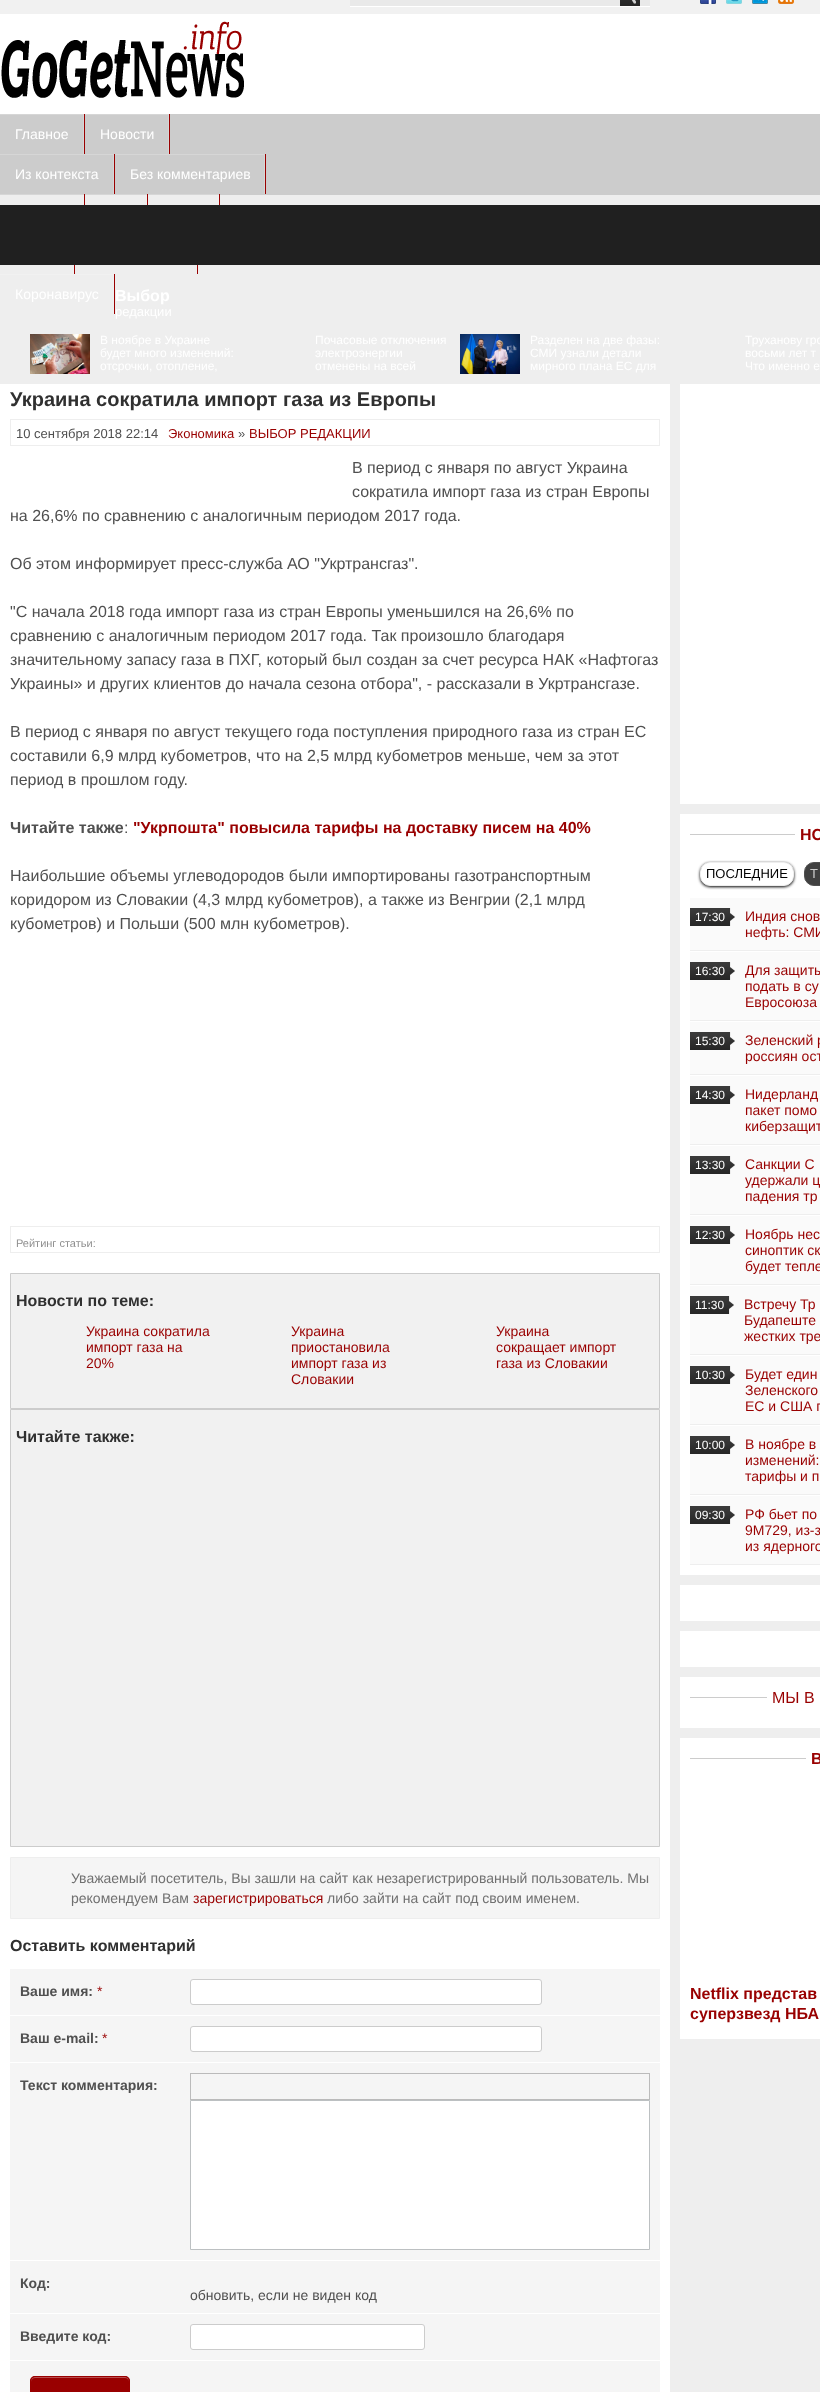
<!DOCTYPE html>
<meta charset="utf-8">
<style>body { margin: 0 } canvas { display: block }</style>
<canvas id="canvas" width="820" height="2392"></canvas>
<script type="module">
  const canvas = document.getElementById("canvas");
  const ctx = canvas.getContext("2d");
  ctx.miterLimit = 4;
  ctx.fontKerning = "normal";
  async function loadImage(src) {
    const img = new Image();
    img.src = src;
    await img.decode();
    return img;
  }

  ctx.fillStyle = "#eeeeee";
  ctx.fillRect(0, 0, 820, 2392);
  ctx.fillStyle = "#f1f1f1";
  ctx.fillRect(0, 0, 820, 14);
  ctx.fillStyle = "#e9e9e9";
  ctx.fillRect(350, 0, 300, 6);
  ctx.fillStyle = "#ffffff";
  ctx.fillRect(350, 6, 300, 1);
  ctx.drawImage(await loadImage("img1.png"), 620, 0, 20, 6);
  ctx.drawImage(await loadImage("img2.png"), 700, 0, 16, 4);
  ctx.drawImage(await loadImage("img3.png"), 726, 0, 16, 4);
  ctx.drawImage(await loadImage("img4.png"), 752, 0, 16, 4);
  ctx.drawImage(await loadImage("img5.png"), 778, 0, 16, 4);
  ctx.fillRect(0, 14, 820, 100);
  ctx.drawImage(await loadImage("img6.png"), 1, 21, 243, 77);
  ctx.fillStyle = "#cccccc";
  ctx.fillRect(0, 114, 820, 81);
  ctx.save();
  ctx.beginPath();
  ctx.rect(0, 114, 84, 40);
  ctx.clip();
  ctx.fillStyle = "#d6d6d6";
  ctx.beginPath();
  ctx.moveTo(-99, 15);
  ctx.lineTo(183, 15);
  ctx.lineTo(183, 253);
  ctx.lineTo(-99, 253);
  ctx.closePath();
  ctx.moveTo(-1, 115);
  ctx.lineTo(83, 115);
  ctx.lineTo(83, 155);
  ctx.lineTo(-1, 155);
  ctx.closePath();
  ctx.fill("evenodd");
  ctx.restore();
  ctx.fillStyle = "#990000";
  ctx.fillRect(84, 114, 1, 40);
  ctx.font = "14px Liberation Sans";
  ctx.fillStyle = "#ffffff";
  ctx.fillText("Главное", 15, 139);
  ctx.save();
  ctx.beginPath();
  ctx.rect(85, 114, 84, 40);
  ctx.clip();
  ctx.fillStyle = "#d6d6d6";
  ctx.beginPath();
  ctx.moveTo(-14, 15);
  ctx.lineTo(268, 15);
  ctx.lineTo(268, 253);
  ctx.lineTo(-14, 253);
  ctx.closePath();
  ctx.moveTo(84, 115);
  ctx.lineTo(168, 115);
  ctx.lineTo(168, 155);
  ctx.lineTo(84, 155);
  ctx.closePath();
  ctx.fill("evenodd");
  ctx.restore();
  ctx.fillStyle = "#990000";
  ctx.fillRect(169, 114, 1, 40);
  ctx.fillStyle = "#ffffff";
  ctx.fillText("Новости", 100, 139);
  ctx.save();
  ctx.beginPath();
  ctx.rect(0, 154, 114, 40);
  ctx.clip();
  ctx.fillStyle = "#d6d6d6";
  ctx.beginPath();
  ctx.moveTo(-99, 55);
  ctx.lineTo(213, 55);
  ctx.lineTo(213, 293);
  ctx.lineTo(-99, 293);
  ctx.closePath();
  ctx.moveTo(-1, 155);
  ctx.lineTo(113, 155);
  ctx.lineTo(113, 195);
  ctx.lineTo(-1, 195);
  ctx.closePath();
  ctx.fill("evenodd");
  ctx.restore();
  ctx.fillStyle = "#990000";
  ctx.fillRect(114, 154, 1, 40);
  ctx.fillStyle = "#ffffff";
  ctx.fillText("Из контекста", 15, 179);
  ctx.save();
  ctx.beginPath();
  ctx.rect(115, 154, 150, 40);
  ctx.clip();
  ctx.fillStyle = "#d6d6d6";
  ctx.beginPath();
  ctx.moveTo(16, 55);
  ctx.lineTo(364, 55);
  ctx.lineTo(364, 293);
  ctx.lineTo(16, 293);
  ctx.closePath();
  ctx.moveTo(114, 155);
  ctx.lineTo(264, 155);
  ctx.lineTo(264, 195);
  ctx.lineTo(114, 195);
  ctx.closePath();
  ctx.fill("evenodd");
  ctx.restore();
  ctx.fillStyle = "#990000";
  ctx.fillRect(265, 154, 1, 40);
  ctx.fillStyle = "#ffffff";
  ctx.fillText("Без комментариев", 130, 179);
  ctx.save();
  ctx.beginPath();
  ctx.rect(0, 194, 84, 40);
  ctx.clip();
  ctx.fillStyle = "rgba(255, 255, 255, 0.2)";
  ctx.beginPath();
  ctx.moveTo(-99, 95);
  ctx.lineTo(183, 95);
  ctx.lineTo(183, 333);
  ctx.lineTo(-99, 333);
  ctx.closePath();
  ctx.moveTo(-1, 195);
  ctx.lineTo(83, 195);
  ctx.lineTo(83, 235);
  ctx.lineTo(-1, 235);
  ctx.closePath();
  ctx.fill("evenodd");
  ctx.restore();
  ctx.fillStyle = "#990000";
  ctx.fillRect(84, 194, 1, 11);
  ctx.save();
  ctx.beginPath();
  ctx.rect(85, 194, 62, 40);
  ctx.clip();
  ctx.fillStyle = "rgba(255, 255, 255, 0.2)";
  ctx.beginPath();
  ctx.moveTo(-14, 95);
  ctx.lineTo(246, 95);
  ctx.lineTo(246, 333);
  ctx.lineTo(-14, 333);
  ctx.closePath();
  ctx.moveTo(84, 195);
  ctx.lineTo(146, 195);
  ctx.lineTo(146, 235);
  ctx.lineTo(84, 235);
  ctx.closePath();
  ctx.fill("evenodd");
  ctx.restore();
  ctx.fillRect(147, 194, 1, 11);
  ctx.save();
  ctx.beginPath();
  ctx.rect(148, 194, 71, 40);
  ctx.clip();
  ctx.fillStyle = "rgba(255, 255, 255, 0.2)";
  ctx.beginPath();
  ctx.moveTo(49, 95);
  ctx.lineTo(318, 95);
  ctx.lineTo(318, 333);
  ctx.lineTo(49, 333);
  ctx.closePath();
  ctx.moveTo(147, 195);
  ctx.lineTo(218, 195);
  ctx.lineTo(218, 235);
  ctx.lineTo(147, 235);
  ctx.closePath();
  ctx.fill("evenodd");
  ctx.restore();
  ctx.fillRect(219, 194, 1, 11);
  ctx.save();
  ctx.beginPath();
  ctx.rect(0, 234, 74, 40);
  ctx.clip();
  ctx.fillStyle = "#f1f1f1";
  ctx.beginPath();
  ctx.moveTo(-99, 135);
  ctx.lineTo(173, 135);
  ctx.lineTo(173, 373);
  ctx.lineTo(-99, 373);
  ctx.closePath();
  ctx.moveTo(-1, 235);
  ctx.lineTo(73, 235);
  ctx.lineTo(73, 275);
  ctx.lineTo(-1, 275);
  ctx.closePath();
  ctx.fill("evenodd");
  ctx.restore();
  ctx.fillRect(74, 265, 1, 9);
  ctx.save();
  ctx.beginPath();
  ctx.rect(75, 234, 122, 40);
  ctx.clip();
  ctx.fillStyle = "#f1f1f1";
  ctx.beginPath();
  ctx.moveTo(-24, 135);
  ctx.lineTo(296, 135);
  ctx.lineTo(296, 373);
  ctx.lineTo(-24, 373);
  ctx.closePath();
  ctx.moveTo(74, 235);
  ctx.lineTo(196, 235);
  ctx.lineTo(196, 275);
  ctx.lineTo(74, 275);
  ctx.closePath();
  ctx.fill("evenodd");
  ctx.restore();
  ctx.fillRect(197, 265, 1, 9);
  ctx.save();
  ctx.beginPath();
  ctx.rect(0, 274, 114, 40);
  ctx.clip();
  ctx.fillStyle = "#f1f1f1";
  ctx.beginPath();
  ctx.moveTo(-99, 175);
  ctx.lineTo(213, 175);
  ctx.lineTo(213, 413);
  ctx.lineTo(-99, 413);
  ctx.closePath();
  ctx.moveTo(-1, 275);
  ctx.lineTo(113, 275);
  ctx.lineTo(113, 315);
  ctx.lineTo(-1, 315);
  ctx.closePath();
  ctx.fill("evenodd");
  ctx.restore();
  ctx.fillRect(114, 274, 1, 40);
  ctx.fillStyle = "#ffffff";
  ctx.fillText("Коронавирус", 15, 299);
  ctx.fillStyle = "#202020";
  ctx.fillRect(0, 205, 820, 60);
  ctx.font = "bold 16px Liberation Sans";
  ctx.fillStyle = "#ffffff";
  ctx.fillText("Выбор", 115, 301);
  ctx.font = "13px Liberation Sans";
  ctx.fillText("редакции", 115, 316);
  ctx.drawImage(await loadImage("img7.png"), 30, 334, 60, 40);
  ctx.font = "12px Liberation Sans";
  ctx.fillText("В ноябре в Украине", 100, 344);
  ctx.fillText("будет много изменений:", 100, 357);
  ctx.fillText("отсрочки, отопление,", 100, 370);
  ctx.fillText("Почасовые отключения", 315, 344);
  ctx.fillText("электроэнергии", 315, 357);
  ctx.fillText("отменены на всей", 315, 370);
  ctx.drawImage(await loadImage("img8.png"), 460, 334, 60, 40);
  ctx.fillText("Разделен на две фазы:", 530, 344);
  ctx.fillText("СМИ узнали детали", 530, 357);
  ctx.fillText("мирного плана ЕС для", 530, 370);
  ctx.fillText("Труханову гро", 745, 344);
  ctx.fillText("восьми лет т", 745, 357);
  ctx.fillText("Что именно е", 745, 370);
  ctx.fillRect(0, 384, 670, 2008);
  ctx.font = "bold 20px Liberation Sans";
  ctx.fillStyle = "#303030";
  ctx.fillText("Украина сократила импорт газа из Европы", 10, 406);
  ctx.strokeStyle = "#eeeeee";
  ctx.strokeRect(10.5, 419.5, 649, 26);
  ctx.font = "13px Liberation Sans";
  ctx.fillStyle = "#505050";
  ctx.fillText("10 сентября 2018 22:14", 16, 438);
  ctx.fillStyle = "#990000";
  ctx.fillText("Экономика", 168, 438);
  ctx.fillStyle = "#505050";
  ctx.fillText("»", 238, 438);
  ctx.fillStyle = "#990000";
  ctx.fillText("ВЫБОР РЕДАКЦИИ", 249, 438);
  ctx.font = "16px Liberation Sans";
  ctx.fillStyle = "#505050";
  ctx.fillText("В период с января по август Украина", 352, 473);
  ctx.fillText("сократила импорт газа из стран Европы", 352, 497);
  ctx.fillText("на 26,6% по сравнению с аналогичным периодом 2017 года.", 10, 521);
  ctx.fillText("Об этом информирует пресс-служба АО \"Укртрансгаз\".", 10, 569);
  ctx.fillText("\"С начала 2018 года импорт газа из стран Европы уменьшился на 26,6% по", 10, 617);
  ctx.fillText("сравнению с аналогичным периодом 2017 года. Так произошло благодаря", 10, 641);
  ctx.fillText("значительному запасу газа в ПХГ, который был создан за счет ресурса НАК «Нафтогаз", 10, 665);
  ctx.fillText("Украины» и других клиентов до начала сезона отбора\", - рассказали в Укртрансгазе.", 10, 689);
  ctx.fillText("В период с января по август текущего года поступления природного газа из стран ЕС", 10, 737);
  ctx.fillText("составили 6,9 млрд кубометров, что на 2,5 млрд кубометров меньше, чем за этот", 10, 761);
  ctx.fillText("период в прошлом году.", 10, 785);
  ctx.font = "bold 16px Liberation Sans";
  ctx.fillText("Читайте также", 10, 833);
  ctx.font = "16px Liberation Sans";
  ctx.fillText(":", 124, 833);
  ctx.font = "bold 16px Liberation Sans";
  ctx.fillStyle = "#990000";
  ctx.fillText("\"Укрпошта\" повысила тарифы на доставку писем на 40%", 133, 833);
  ctx.font = "16px Liberation Sans";
  ctx.fillStyle = "#505050";
  ctx.fillText("Наибольшие объемы углеводородов были импортированы газотранспортным", 10, 881);
  ctx.fillText("коридором из Словакии (4,3 млрд кубометров), а также из Венгрии (2,1 млрд", 10, 905);
  ctx.fillText("кубометров) и Польши (500 млн кубометров).", 10, 929);
  ctx.strokeRect(10.5, 1226.5, 649, 26);
  ctx.font = "11px Liberation Sans";
  ctx.fillStyle = "#909090";
  ctx.fillText("Рейтинг статьи:", 16, 1247);
  ctx.fillStyle = "#f1f1f1";
  ctx.beginPath();
  ctx.rect(10.5, 1273.5, 649, 135);
  ctx.fill();
  ctx.strokeStyle = "#cccccc";
  ctx.stroke();
  ctx.font = "bold 16px Liberation Sans";
  ctx.fillStyle = "#303030";
  ctx.fillText("Новости по теме:", 16, 1306);
  ctx.font = "14px Liberation Sans";
  ctx.fillStyle = "#990000";
  ctx.fillText("Украина сократила", 86, 1336);
  ctx.fillText("импорт газа на", 86, 1352);
  ctx.fillText("20%", 86, 1368);
  ctx.fillText("Украина", 291, 1336);
  ctx.fillText("приостановила", 291, 1352);
  ctx.fillText("импорт газа из", 291, 1368);
  ctx.fillText("Словакии", 291, 1384);
  ctx.fillText("Украина", 496, 1336);
  ctx.fillText("сокращает импорт", 496, 1352);
  ctx.fillText("газа из Словакии", 496, 1368);
  ctx.fillStyle = "#f1f1f1";
  ctx.beginPath();
  ctx.rect(10.5, 1409.5, 649, 437);
  ctx.fill();
  ctx.stroke();
  ctx.font = "bold 16px Liberation Sans";
  ctx.fillStyle = "#303030";
  ctx.fillText("Читайте также:", 16, 1442);
  ctx.fillStyle = "#f5f5f5";
  ctx.beginPath();
  ctx.rect(10.5, 1857.5, 649, 61);
  ctx.fill();
  ctx.strokeStyle = "#eeeeee";
  ctx.stroke();
  ctx.font = "14px Liberation Sans";
  ctx.fillStyle = "#707070";
  ctx.fillText("Уважаемый посетитель, Вы зашли на сайт как незарегистрированный пользователь. Мы", 71, 1883);
  ctx.fillText("рекомендуем Вам", 71, 1903);
  ctx.fillStyle = "#990000";
  ctx.fillText("зарегистрироваться", 193, 1903);
  ctx.fillStyle = "#707070";
  ctx.fillText("либо зайти на сайт под своим именем.", 327, 1903);
  ctx.font = "bold 16px Liberation Sans";
  ctx.fillStyle = "#303030";
  ctx.fillText("Оставить комментарий", 10, 1951);
  ctx.fillStyle = "#f5f5f5";
  ctx.fillRect(10, 1969, 650, 423);
  ctx.font = "bold 14px Liberation Sans";
  ctx.fillStyle = "#505050";
  ctx.fillText("Ваше имя:", 20, 1996);
  ctx.font = "14px Liberation Sans";
  ctx.fillStyle = "#990000";
  ctx.fillText("*", 97, 1996);
  ctx.fillStyle = "#ffffff";
  ctx.beginPath();
  ctx.roundRect(190.5, 1979.5, 351, 25, 2.5);
  ctx.fill();
  ctx.strokeStyle = "#cccccc";
  ctx.stroke();
  ctx.fillRect(10, 2015, 651, 1);
  ctx.beginPath();
  ctx.roundRect(190.5, 2026.5, 351, 25, 2.5);
  ctx.fill();
  ctx.stroke();
  ctx.font = "bold 14px Liberation Sans";
  ctx.fillStyle = "#505050";
  ctx.fillText("Ваш e-mail:", 20, 2043);
  ctx.font = "14px Liberation Sans";
  ctx.fillStyle = "#990000";
  ctx.fillText("*", 102, 2043);
  ctx.fillStyle = "#ffffff";
  ctx.fillRect(10, 2062, 651, 1);
  ctx.strokeStyle = "#bbbbbb";
  ctx.strokeRect(190.5, 2073.5, 459, 26);
  ctx.beginPath();
  ctx.rect(190.5, 2100.5, 459, 149);
  ctx.fill();
  ctx.strokeStyle = "#bcc0c2";
  ctx.stroke();
  ctx.font = "bold 14px Liberation Sans";
  ctx.fillStyle = "#505050";
  ctx.fillText("Текст комментария:", 20, 2090);
  ctx.fillText("Код:", 20, 2288);
  ctx.fillStyle = "#ffffff";
  ctx.fillRect(10, 2260, 651, 1);
  ctx.font = "14px Liberation Sans";
  ctx.fillStyle = "#505050";
  ctx.fillText("обновить, если не виден код", 190, 2300);
  ctx.fillStyle = "#ffffff";
  ctx.fillRect(10, 2313, 651, 1);
  ctx.beginPath();
  ctx.roundRect(190.5, 2324.5, 234, 25, 2.5);
  ctx.fill();
  ctx.strokeStyle = "#cccccc";
  ctx.stroke();
  ctx.font = "bold 14px Liberation Sans";
  ctx.fillStyle = "#505050";
  ctx.fillText("Введите код:", 20, 2341);
  ctx.fillStyle = "#ffffff";
  ctx.fillRect(10, 2360, 651, 1);
  ctx.fillStyle = "#990000";
  ctx.beginPath();
  ctx.roundRect(30, 2376, 100, 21, 5);
  ctx.fill();
  ctx.fillStyle = "#b84d4d";
  ctx.beginPath();
  ctx.moveTo(35, 2378);
  ctx.lineTo(125, 2378);
  ctx.bezierCurveTo(127, 2378, 129, 2380, 129, 2382);
  ctx.bezierCurveTo(129, 2373, 114, 2377, 110, 2377);
  ctx.lineTo(50, 2377);
  ctx.bezierCurveTo(46, 2377, 31, 2373, 31, 2382);
  ctx.bezierCurveTo(31, 2380, 33, 2378, 35, 2378);
  ctx.closePath();
  ctx.fill();
  ctx.beginPath();
  ctx.roundRect(30.5, 2376.5, 99, 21, 4.5);
  ctx.strokeStyle = "#990000";
  ctx.stroke();
  ctx.fillStyle = "#ffffff";
  ctx.fillRect(680, 384, 140, 420);
  ctx.fillRect(680, 814, 140, 761);
  ctx.fillStyle = "#cccccc";
  ctx.fillRect(690, 834, 105, 1);
  ctx.font = "bold 16px Liberation Sans";
  ctx.fillStyle = "#990000";
  ctx.fillText("НО", 800, 840);
  ctx.fillStyle = "#000000";
  ctx.filter = "blur(1.5px)";
  ctx.beginPath();
  ctx.roundRect(700, 863, 94, 24, 10);
  ctx.fill();
  ctx.filter = "none";
  ctx.fillStyle = "#ffffff";
  ctx.beginPath();
  ctx.roundRect(700.5, 862.5, 93, 23, 9.5);
  ctx.fill();
  ctx.strokeStyle = "#eeeeee";
  ctx.stroke();
  ctx.font = "13px Liberation Sans";
  ctx.fillStyle = "#000000";
  ctx.fillText("ПОСЛЕДНИЕ", 706, 878);
  ctx.fillStyle = "#404040";
  ctx.beginPath();
  ctx.roundRect(804.5, 862.5, 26, 23, 9.5);
  ctx.fill();
  ctx.strokeStyle = "#505050";
  ctx.stroke();
  ctx.fillStyle = "#cccccc";
  ctx.fillText("Т", 810, 878);
  ctx.fillStyle = "#fafafa";
  ctx.fillRect(690, 898, 130, 52);
  ctx.fillStyle = "#eeeeee";
  ctx.fillRect(690, 950, 130, 1);
  ctx.drawImage(await loadImage("img9.png"), 690, 908, 45, 18);
  ctx.font = "12px Liberation Sans";
  ctx.fillStyle = "#ffffff";
  ctx.fillText("17:30", 695, 921);
  ctx.font = "14px Liberation Sans";
  ctx.fillStyle = "#990000";
  ctx.fillText("Индия снов", 745, 921);
  ctx.fillText("нефть: СМИ", 745, 937);
  ctx.fillStyle = "#fafafa";
  ctx.fillRect(690, 952, 130, 68);
  ctx.fillStyle = "#eeeeee";
  ctx.fillRect(690, 1020, 130, 1);
  ctx.drawImage(await loadImage("img9.png"), 690, 962, 45, 18);
  ctx.font = "12px Liberation Sans";
  ctx.fillStyle = "#ffffff";
  ctx.fillText("16:30", 695, 975);
  ctx.font = "14px Liberation Sans";
  ctx.fillStyle = "#990000";
  ctx.fillText("Для защиты", 745, 975);
  ctx.fillText("подать в су", 745, 991);
  ctx.fillText("Евросоюза", 745, 1007);
  ctx.fillStyle = "#fafafa";
  ctx.fillRect(690, 1022, 130, 52);
  ctx.fillStyle = "#eeeeee";
  ctx.fillRect(690, 1074, 130, 1);
  ctx.drawImage(await loadImage("img9.png"), 690, 1032, 45, 18);
  ctx.font = "12px Liberation Sans";
  ctx.fillStyle = "#ffffff";
  ctx.fillText("15:30", 695, 1045);
  ctx.font = "14px Liberation Sans";
  ctx.fillStyle = "#990000";
  ctx.fillText("Зеленский р", 745, 1045);
  ctx.fillText("россиян ост", 745, 1061);
  ctx.fillStyle = "#fafafa";
  ctx.fillRect(690, 1076, 130, 68);
  ctx.fillStyle = "#eeeeee";
  ctx.fillRect(690, 1144, 130, 1);
  ctx.drawImage(await loadImage("img9.png"), 690, 1086, 45, 18);
  ctx.font = "12px Liberation Sans";
  ctx.fillStyle = "#ffffff";
  ctx.fillText("14:30", 695, 1099);
  ctx.font = "14px Liberation Sans";
  ctx.fillStyle = "#990000";
  ctx.fillText("Нидерланд", 745, 1099);
  ctx.fillText("пакет помо", 745, 1115);
  ctx.fillText("киберзащит", 745, 1131);
  ctx.fillStyle = "#fafafa";
  ctx.fillRect(690, 1146, 130, 68);
  ctx.fillStyle = "#eeeeee";
  ctx.fillRect(690, 1214, 130, 1);
  ctx.drawImage(await loadImage("img9.png"), 690, 1156, 45, 18);
  ctx.font = "12px Liberation Sans";
  ctx.fillStyle = "#ffffff";
  ctx.fillText("13:30", 695, 1169);
  ctx.font = "14px Liberation Sans";
  ctx.fillStyle = "#990000";
  ctx.fillText("Санкции С", 745, 1169);
  ctx.fillText("удержали ц", 745, 1185);
  ctx.fillText("падения тр", 745, 1201);
  ctx.fillStyle = "#fafafa";
  ctx.fillRect(690, 1216, 130, 68);
  ctx.fillStyle = "#eeeeee";
  ctx.fillRect(690, 1284, 130, 1);
  ctx.drawImage(await loadImage("img9.png"), 690, 1226, 45, 18);
  ctx.font = "12px Liberation Sans";
  ctx.fillStyle = "#ffffff";
  ctx.fillText("12:30", 695, 1239);
  ctx.font = "14px Liberation Sans";
  ctx.fillStyle = "#990000";
  ctx.fillText("Ноябрь нес", 745, 1239);
  ctx.fillText("синоптик ск", 745, 1255);
  ctx.fillText("будет тепле", 745, 1271);
  ctx.fillStyle = "#fafafa";
  ctx.fillRect(690, 1286, 130, 68);
  ctx.fillStyle = "#eeeeee";
  ctx.fillRect(690, 1354, 130, 1);
  ctx.drawImage(await loadImage("img10.png"), 690, 1296, 44, 18);
  ctx.font = "12px Liberation Sans";
  ctx.fillStyle = "#ffffff";
  ctx.fillText("11:30", 695, 1309);
  ctx.font = "14px Liberation Sans";
  ctx.fillStyle = "#990000";
  ctx.fillText("Встречу Тр", 744, 1309);
  ctx.fillText("Будапеште", 744, 1325);
  ctx.fillText("жестких тре", 744, 1341);
  ctx.fillStyle = "#fafafa";
  ctx.fillRect(690, 1356, 130, 68);
  ctx.fillStyle = "#eeeeee";
  ctx.fillRect(690, 1424, 130, 1);
  ctx.drawImage(await loadImage("img9.png"), 690, 1366, 45, 18);
  ctx.font = "12px Liberation Sans";
  ctx.fillStyle = "#ffffff";
  ctx.fillText("10:30", 695, 1379);
  ctx.font = "14px Liberation Sans";
  ctx.fillStyle = "#990000";
  ctx.fillText("Будет един", 745, 1379);
  ctx.fillText("Зеленского", 745, 1395);
  ctx.fillText("ЕС и США г", 745, 1411);
  ctx.fillStyle = "#fafafa";
  ctx.fillRect(690, 1426, 130, 68);
  ctx.fillStyle = "#eeeeee";
  ctx.fillRect(690, 1494, 130, 1);
  ctx.drawImage(await loadImage("img9.png"), 690, 1436, 45, 18);
  ctx.font = "12px Liberation Sans";
  ctx.fillStyle = "#ffffff";
  ctx.fillText("10:00", 695, 1449);
  ctx.font = "14px Liberation Sans";
  ctx.fillStyle = "#990000";
  ctx.fillText("В ноябре в", 745, 1449);
  ctx.fillText("изменений:", 745, 1465);
  ctx.fillText("тарифы и п", 745, 1481);
  ctx.fillStyle = "#fafafa";
  ctx.fillRect(690, 1496, 130, 68);
  ctx.fillStyle = "#eeeeee";
  ctx.fillRect(690, 1564, 130, 1);
  ctx.drawImage(await loadImage("img9.png"), 690, 1506, 45, 18);
  ctx.font = "12px Liberation Sans";
  ctx.fillStyle = "#ffffff";
  ctx.fillText("09:30", 695, 1519);
  ctx.font = "14px Liberation Sans";
  ctx.fillStyle = "#990000";
  ctx.fillText("РФ бьет по", 745, 1519);
  ctx.fillText("9М729, из-з", 745, 1535);
  ctx.fillText("из ядерного", 745, 1551);
  ctx.fillStyle = "#ffffff";
  ctx.fillRect(680, 1585, 140, 36);
  ctx.fillRect(680, 1631, 140, 36);
  ctx.fillRect(680, 1677, 140, 51);
  ctx.fillStyle = "#cccccc";
  ctx.fillRect(690, 1697, 77, 1);
  ctx.font = "16px Liberation Sans";
  ctx.fillStyle = "#990000";
  ctx.fillText("МЫ В", 772, 1703);
  ctx.fillStyle = "#ffffff";
  ctx.fillRect(680, 1738, 140, 301);
  ctx.fillStyle = "#cccccc";
  ctx.fillRect(690, 1758, 116, 1);
  ctx.font = "bold 16px Liberation Sans";
  ctx.fillStyle = "#990000";
  ctx.fillText("В", 811, 1764);
  ctx.fillText("Netflix представ", 690, 1999);
  ctx.fillText("суперзвезд НБА", 690, 2019);
</script>
